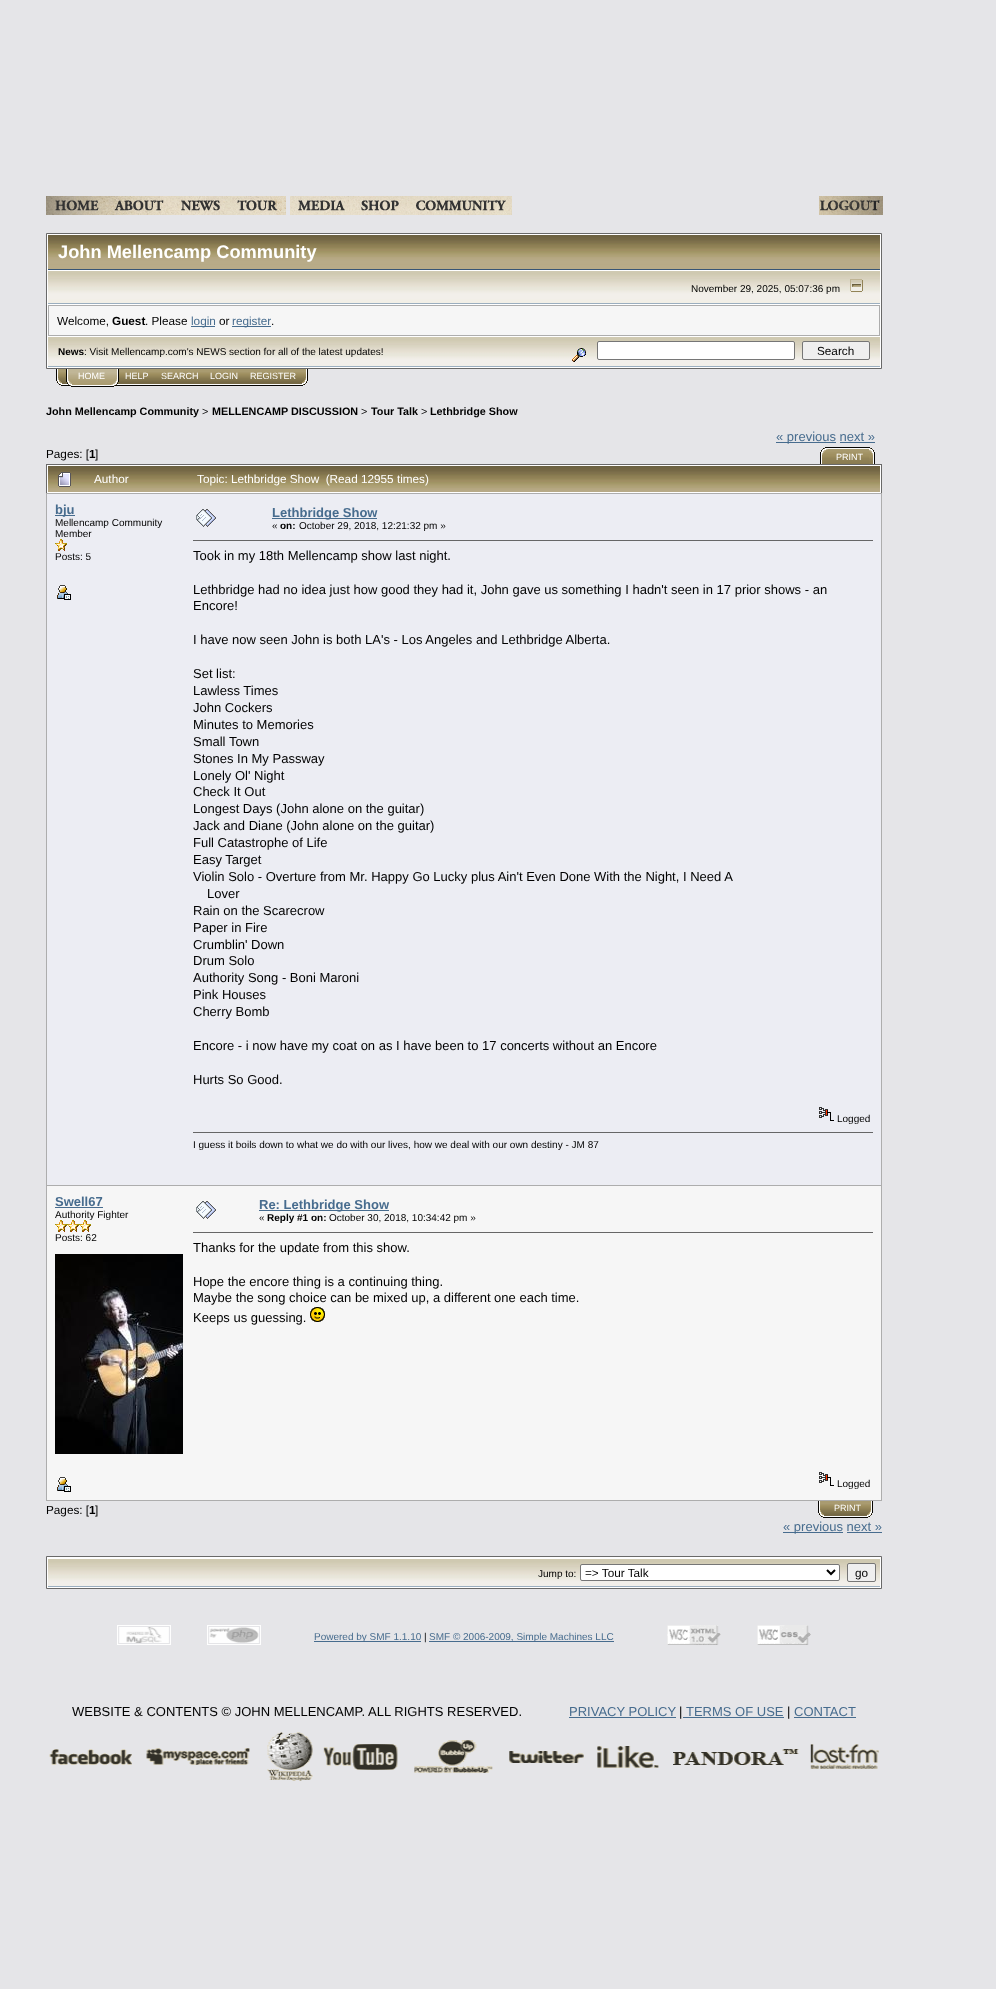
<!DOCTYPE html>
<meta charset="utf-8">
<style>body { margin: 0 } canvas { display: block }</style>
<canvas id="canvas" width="996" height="1989"></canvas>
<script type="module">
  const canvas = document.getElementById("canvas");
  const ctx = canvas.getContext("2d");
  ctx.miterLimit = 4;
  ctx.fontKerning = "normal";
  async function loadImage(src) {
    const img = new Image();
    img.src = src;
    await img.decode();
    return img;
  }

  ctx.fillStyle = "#e5e5e8";
  ctx.fillRect(0, 0, 996, 1989);
  ctx.drawImage(await loadImage("img1.png"), 46, 196, 62, 19);
  ctx.drawImage(await loadImage("img2.png"), 108, 196, 65, 19);
  ctx.drawImage(await loadImage("img3.png"), 173, 196, 56, 19);
  ctx.drawImage(await loadImage("img4.png"), 229, 196, 57, 19);
  ctx.drawImage(await loadImage("img5.png"), 290, 196, 64, 19);
  ctx.drawImage(await loadImage("img6.png"), 354, 196, 55, 19);
  ctx.drawImage(await loadImage("img7.png"), 409, 196, 103, 19);
  ctx.drawImage(await loadImage("img8.png"), 819, 196, 64, 19);
  ctx.fillStyle = "#ffffff";
  ctx.beginPath();
  ctx.rect(46.5, 233.5, 835, 135);
  ctx.fill();
  ctx.strokeStyle = "#696969";
  ctx.stroke();
  ctx.drawImage(await loadImage("img9.png"), 48, 235, 413, 34);
  ctx.fillStyle = "#375576";
  ctx.fillRect(48, 269, 832, 1);
  ctx.font = "bold 18.25px Liberation Sans";
  ctx.fillStyle = "#ffffff";
  ctx.fillText("John Mellencamp Community", 58, 258);
  ctx.drawImage(await loadImage("img10.png"), 461, 235, 419, 34);
  ctx.drawImage(await loadImage("img11.png"), 48, 271, 832, 32);
  ctx.fillStyle = "#9baebf";
  ctx.fillRect(48, 303, 832, 1);
  ctx.font = "10px Liberation Sans";
  ctx.fillStyle = "#000000";
  ctx.fillText("November 29, 2025, 05:07:36 pm", 691, 292);
  ctx.drawImage(await loadImage("img12.png"), 850, 279, 13, 13);
  ctx.fillStyle = "#adadad";
  ctx.fillRect(48, 305, 832, 31);
  ctx.fillStyle = "#f6f6f6";
  ctx.fillRect(49, 306, 830, 29);
  ctx.font = "11.75px Liberation Sans";
  ctx.fillStyle = "#000000";
  ctx.fillText("Welcome,", 57, 325);
  ctx.font = "bold 11.75px Liberation Sans";
  ctx.fillText("Guest", 112, 325);
  ctx.font = "11.75px Liberation Sans";
  ctx.fillText(". Please", 145, 325);
  ctx.fillStyle = "#476c8e";
  ctx.fillRect(191, 326, 24, 1);
  ctx.fillText("login", 191, 325);
  ctx.fillStyle = "#000000";
  ctx.fillText("or", 219, 325);
  ctx.fillStyle = "#476c8e";
  ctx.fillRect(232, 326, 39, 1);
  ctx.fillText("register", 232, 325);
  ctx.fillStyle = "#000000";
  ctx.fillText(".", 271, 325);
  ctx.drawImage(await loadImage("img13.png"), 48, 337, 507, 29);
  ctx.fillStyle = "#9baebf";
  ctx.fillRect(48, 366, 832, 1);
  ctx.font = "bold 10px Liberation Sans";
  ctx.fillStyle = "#000000";
  ctx.fillText("News", 58, 355);
  ctx.font = "10px Liberation Sans";
  ctx.fillText(": Visit Mellencamp.com's NEWS section for all of the latest updates!", 84, 355);
  ctx.drawImage(await loadImage("img14.png"), 555, 337, 325, 29);
  ctx.drawImage(await loadImage("img15.png"), 572, 348, 14, 14);
  ctx.fillStyle = "#ffffff";
  ctx.beginPath();
  ctx.roundRect(597.5, 341.5, 197, 18, 1.5);
  ctx.fill();
  ctx.strokeStyle = "#767676";
  ctx.stroke();
  ctx.fillStyle = "#efefef";
  ctx.beginPath();
  ctx.roundRect(802.5, 341.5, 67, 18, 1.5);
  ctx.fill();
  ctx.stroke();
  ctx.font = "11.75px Liberation Sans";
  ctx.fillStyle = "#000000";
  ctx.fillText("Search", 817, 355);
  ctx.drawImage(await loadImage("img16.png"), 56, 369, 10, 17);
  ctx.drawImage(await loadImage("img17.png"), 66, 369, 6, 18);
  ctx.drawImage(await loadImage("img18.png"), 72, 369, 39, 18);
  ctx.font = "9px Liberation Sans";
  ctx.fillStyle = "#ffffff";
  ctx.fillText("HOME", 78, 379);
  ctx.drawImage(await loadImage("img19.png"), 111, 369, 8, 18);
  ctx.drawImage(await loadImage("img20.png"), 119, 369, 36, 17);
  ctx.fillText("HELP", 125, 379);
  ctx.drawImage(await loadImage("img21.png"), 155, 369, 49, 17);
  ctx.fillText("SEARCH", 161, 379);
  ctx.drawImage(await loadImage("img22.png"), 204, 369, 40, 17);
  ctx.fillText("LOGIN", 210, 379);
  ctx.drawImage(await loadImage("img23.png"), 244, 369, 58, 17);
  ctx.fillText("REGISTER", 250, 379);
  ctx.drawImage(await loadImage("img24.png"), 302, 369, 6, 17);
  ctx.font = "bold 10.8px Liberation Sans";
  ctx.fillStyle = "#000000";
  ctx.fillText("John Mellencamp Community", 46, 415);
  ctx.font = "10.8px Liberation Sans";
  ctx.fillText(">", 202, 415);
  ctx.font = "bold 10.8px Liberation Sans";
  ctx.fillText("MELLENCAMP DISCUSSION", 212, 415);
  ctx.font = "10.8px Liberation Sans";
  ctx.fillText(">", 361, 415);
  ctx.font = "bold 10.8px Liberation Sans";
  ctx.fillText("Tour Talk", 371, 415);
  ctx.font = "10.8px Liberation Sans";
  ctx.fillText(">", 421, 415);
  ctx.font = "bold 10.8px Liberation Sans";
  ctx.fillText("Lethbridge Show", 430, 415);
  ctx.font = "11.75px Liberation Sans";
  ctx.fillText("Pages: [", 46, 458);
  ctx.font = "bold 11.75px Liberation Sans";
  ctx.fillText("1", 89, 458);
  ctx.font = "11.75px Liberation Sans";
  ctx.fillText("]", 95, 458);
  ctx.fillStyle = "#476c8e";
  ctx.fillRect(776, 442, 60, 1);
  ctx.font = "13px Liberation Sans";
  ctx.fillText("« previous next »", 776, 441);
  ctx.fillRect(840, 442, 35, 1);
  ctx.drawImage(await loadImage("img25.png"), 820, 447, 10, 17);
  ctx.drawImage(await loadImage("img26.png"), 830, 447, 39, 17);
  ctx.font = "9px Liberation Sans";
  ctx.fillStyle = "#ffffff";
  ctx.fillText("PRINT", 836, 460);
  ctx.drawImage(await loadImage("img27.png"), 869, 447, 6, 17);
  ctx.fillRect(47, 465, 834, 28);
  ctx.fillStyle = "#696969";
  ctx.fillRect(46, 464, 836, 1);
  ctx.fillRect(881, 464, 1, 29);
  ctx.fillRect(46, 464, 1, 29);
  ctx.drawImage(await loadImage("img28.png"), 48, 466, 36, 26);
  ctx.drawImage(await loadImage("img29.png"), 58, 472, 13, 15);
  ctx.drawImage(await loadImage("img30.png"), 84, 466, 107, 26);
  ctx.font = "11.75px Liberation Sans";
  ctx.fillStyle = "#ffffff";
  ctx.fillText("Author", 94, 483);
  ctx.drawImage(await loadImage("img31.png"), 191, 466, 689, 26);
  ctx.fillText("Topic: Lethbridge Show  (Read 12955 times)", 197, 483);
  ctx.fillStyle = "#adadad";
  ctx.fillRect(46, 493, 836, 1008);
  ctx.fillStyle = "#ecedf3";
  ctx.fillRect(47, 494, 834, 691);
  ctx.fillStyle = "#476c8e";
  ctx.fillRect(55, 515, 20, 1);
  ctx.font = "bold 13px Liberation Sans";
  ctx.fillText("bju", 55, 514);
  ctx.font = "10px Liberation Sans";
  ctx.fillStyle = "#000000";
  ctx.fillText("Mellencamp Community", 55, 526);
  ctx.fillText("Member", 55, 537);
  ctx.drawImage(await loadImage("img32.png"), 55, 539, 12, 12);
  ctx.fillText("Posts: 5", 55, 560);
  ctx.drawImage(await loadImage("img33.png"), 57, 585, 14, 15);
  ctx.drawImage(await loadImage("img34.png"), 196, 509, 20, 18);
  ctx.fillStyle = "#476c8e";
  ctx.fillRect(272, 518, 105, 1);
  ctx.font = "bold 13px Liberation Sans";
  ctx.fillText("Lethbridge Show", 272, 517);
  ctx.font = "10px Liberation Sans";
  ctx.fillStyle = "#000000";
  ctx.fillText("«", 272, 529);
  ctx.font = "bold 10px Liberation Sans";
  ctx.fillText("on:", 280, 529);
  ctx.font = "10px Liberation Sans";
  ctx.fillText("October 29, 2018, 12:21:32 pm »", 299, 529);
  ctx.fillStyle = "#666666";
  ctx.fillRect(193, 540, 680, 1);
  ctx.font = "13px Liberation Sans";
  ctx.fillStyle = "#000000";
  ctx.fillText("Took in my 18th Mellencamp show last night.", 193, 560);
  ctx.fillText("Lethbridge had no idea just how good they had it, John gave us something I hadn't seen in 17 prior shows - an", 193, 594);
  ctx.fillText("Encore!", 193, 610);
  ctx.fillText("I have now seen John is both LA's - Los Angeles and Lethbridge Alberta.", 193, 644);
  ctx.fillText("Set list:", 193, 678);
  ctx.fillText("Lawless Times", 193, 695);
  ctx.fillText("John Cockers", 193, 712);
  ctx.fillText("Minutes to Memories", 193, 729);
  ctx.fillText("Small Town", 193, 746);
  ctx.fillText("Stones In My Passway", 193, 763);
  ctx.fillText("Lonely Ol' Night", 193, 780);
  ctx.fillText("Check It Out", 193, 796);
  ctx.fillText("Longest Days (John alone on the guitar)", 193, 813);
  ctx.fillText("Jack and Diane (John alone on the guitar)", 193, 830);
  ctx.fillText("Full Catastrophe of Life", 193, 847);
  ctx.fillText("Easy Target", 193, 864);
  ctx.fillText("Violin Solo - Overture from Mr. Happy Go Lucky plus Ain't Even Done With the Night, I Need A", 193, 881);
  ctx.fillText("Lover", 207, 898);
  ctx.fillText("Rain on the Scarecrow", 193, 915);
  ctx.fillText("Paper in Fire", 193, 932);
  ctx.fillText("Crumblin' Down", 193, 949);
  ctx.fillText("Drum Solo", 193, 965);
  ctx.fillText("Authority Song - Boni Maroni", 193, 982);
  ctx.fillText("Pink Houses", 193, 999);
  ctx.fillText("Cherry Bomb", 193, 1016);
  ctx.fillText("Encore - i now have my coat on as I have been to 17 concerts without an Encore", 193, 1050);
  ctx.fillText("Hurts So Good.", 193, 1084);
  ctx.drawImage(await loadImage("img35.png"), 819, 1107, 15, 14);
  ctx.font = "10px Liberation Sans";
  ctx.fillText("Logged", 837, 1122);
  ctx.fillStyle = "#666666";
  ctx.fillRect(193, 1132, 680, 1);
  ctx.fillStyle = "#000000";
  ctx.fillText("I guess it boils down to what we do with our lives, how we deal with our own destiny - JM 87", 193, 1148);
  ctx.fillStyle = "#f6f6f6";
  ctx.fillRect(47, 1186, 834, 314);
  ctx.font = "bold 13px Liberation Sans";
  ctx.fillStyle = "#476c8e";
  ctx.fillText("Swell67", 55, 1206);
  ctx.fillRect(55, 1207, 48, 1);
  ctx.font = "10px Liberation Sans";
  ctx.fillStyle = "#000000";
  ctx.fillText("Authority Fighter", 55, 1218);
  ctx.drawImage(await loadImage("img36.png"), 55, 1220, 12, 12);
  ctx.drawImage(await loadImage("img36.png"), 67, 1220, 12, 12);
  ctx.drawImage(await loadImage("img37.png"), 79, 1220, 12, 12);
  ctx.fillText("Posts: 62", 55, 1241);
  ctx.drawImage(await loadImage("img38.png"), 55, 1254, 128, 200);
  ctx.drawImage(await loadImage("img39.png"), 57, 1477, 14, 15);
  ctx.drawImage(await loadImage("img40.png"), 196, 1201, 20, 18);
  ctx.fillStyle = "#476c8e";
  ctx.fillRect(259, 1210, 130, 1);
  ctx.font = "bold 13px Liberation Sans";
  ctx.fillText("Re: Lethbridge Show", 259, 1209);
  ctx.font = "10px Liberation Sans";
  ctx.fillStyle = "#000000";
  ctx.fillText("«", 259, 1221);
  ctx.font = "bold 10px Liberation Sans";
  ctx.fillText("Reply #1 on:", 267, 1221);
  ctx.font = "10px Liberation Sans";
  ctx.fillText("October 30, 2018, 10:34:42 pm »", 329, 1221);
  ctx.fillStyle = "#666666";
  ctx.fillRect(193, 1232, 680, 1);
  ctx.font = "13px Liberation Sans";
  ctx.fillStyle = "#000000";
  ctx.fillText("Thanks for the update from this show.", 193, 1252);
  ctx.fillText("Hope the encore thing is a continuing thing.", 193, 1286);
  ctx.fillText("Maybe the song choice can be mixed up, a different one each time.", 193, 1302);
  ctx.fillText("Keeps us guessing.", 193, 1322);
  ctx.drawImage(await loadImage("img41.png"), 310, 1307, 15, 15);
  ctx.drawImage(await loadImage("img42.png"), 819, 1472, 15, 14);
  ctx.font = "10px Liberation Sans";
  ctx.fillText("Logged", 837, 1487);
  ctx.font = "11.75px Liberation Sans";
  ctx.fillText("Pages: [", 46, 1514);
  ctx.font = "bold 11.75px Liberation Sans";
  ctx.fillText("1", 89, 1514);
  ctx.font = "11.75px Liberation Sans";
  ctx.fillText("]", 95, 1514);
  ctx.drawImage(await loadImage("img16.png"), 818, 1501, 10, 17);
  ctx.drawImage(await loadImage("img43.png"), 828, 1501, 39, 17);
  ctx.font = "9px Liberation Sans";
  ctx.fillStyle = "#ffffff";
  ctx.fillText("PRINT", 834, 1511);
  ctx.drawImage(await loadImage("img24.png"), 867, 1501, 6, 17);
  ctx.fillStyle = "#476c8e";
  ctx.fillRect(783, 1532, 60, 1);
  ctx.font = "13px Liberation Sans";
  ctx.fillText("« previous next »", 783, 1531);
  ctx.fillRect(847, 1532, 35, 1);
  ctx.fillStyle = "#ffffff";
  ctx.beginPath();
  ctx.rect(46.5, 1556.5, 835, 32);
  ctx.fill();
  ctx.strokeStyle = "#696969";
  ctx.stroke();
  ctx.drawImage(await loadImage("img44.png"), 48, 1559, 832, 27);
  ctx.fillStyle = "#9baebf";
  ctx.fillRect(48, 1586, 832, 1);
  ctx.font = "10px Liberation Sans";
  ctx.fillStyle = "#000000";
  ctx.fillText("Jump to:", 538, 1577);
  ctx.fillStyle = "#ffffff";
  ctx.beginPath();
  ctx.roundRect(580.5, 1564.5, 259, 16, 1.5);
  ctx.fill();
  ctx.strokeStyle = "#767676";
  ctx.stroke();
  ctx.beginPath();
  ctx.moveTo(827, 1570);
  ctx.lineTo(831, 1574);
  ctx.lineTo(835, 1570);
  ctx.strokeStyle = "#000000";
  ctx.lineWidth = 2;
  ctx.stroke();
  ctx.font = "11.75px Liberation Sans";
  ctx.fillStyle = "#000000";
  ctx.fillText("=> Tour Talk", 585, 1577);
  ctx.fillStyle = "#efefef";
  ctx.beginPath();
  ctx.roundRect(847.5, 1563.5, 28, 18, 1.5);
  ctx.fill();
  ctx.strokeStyle = "#767676";
  ctx.lineWidth = 1;
  ctx.stroke();
  ctx.fillStyle = "#000000";
  ctx.fillText("go", 855, 1577);
  ctx.drawImage(await loadImage("img45.png"), 117, 1625, 54, 20);
  ctx.drawImage(await loadImage("img46.png"), 207, 1625, 54, 20);
  ctx.fillStyle = "#476c8e";
  ctx.fillRect(314, 1641, 107, 1);
  ctx.font = "10px Liberation Sans";
  ctx.fillText("Powered by SMF 1.1.10", 314, 1640);
  ctx.fillStyle = "#000000";
  ctx.fillText("|", 424, 1640);
  ctx.fillStyle = "#476c8e";
  ctx.fillRect(429, 1641, 185, 1);
  ctx.fillText("SMF © 2006-2009, Simple Machines LLC", 429, 1640);
  ctx.drawImage(await loadImage("img47.png"), 667, 1625, 54, 20);
  ctx.drawImage(await loadImage("img48.png"), 757, 1625, 54, 20);
  ctx.font = "13px Liberation Sans";
  ctx.fillStyle = "#000000";
  ctx.fillText("WEBSITE & CONTENTS © JOHN MELLENCAMP. ALL RIGHTS RESERVED.", 72, 1716);
  ctx.fillStyle = "#476c8e";
  ctx.fillText("PRIVACY POLICY", 569, 1716);
  ctx.fillRect(569, 1717, 107, 1);
  ctx.fillStyle = "#000000";
  ctx.fillText("|", 679, 1716);
  ctx.fillStyle = "#476c8e";
  ctx.fillRect(683, 1717, 101, 1);
  ctx.fillText("TERMS OF USE", 686, 1716);
  ctx.fillStyle = "#000000";
  ctx.fillText("|", 787, 1716);
  ctx.fillStyle = "#476c8e";
  ctx.fillText("CONTACT", 794, 1716);
  ctx.fillRect(794, 1717, 62, 1);
  ctx.drawImage(await loadImage("img49.png"), 49, 1732, 830, 49);
</script>
